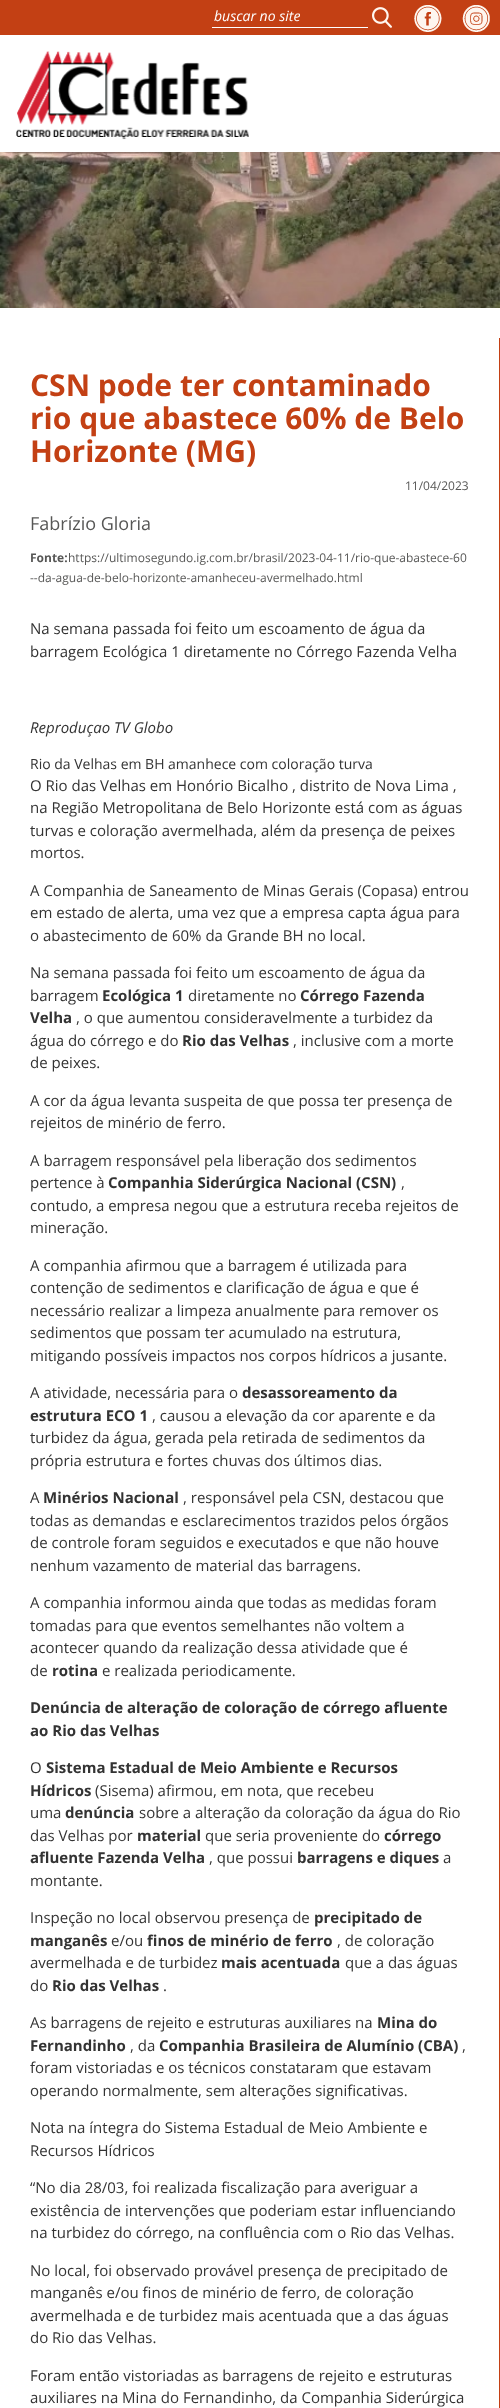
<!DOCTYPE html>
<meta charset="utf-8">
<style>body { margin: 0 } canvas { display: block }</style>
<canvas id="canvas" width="500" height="2408"></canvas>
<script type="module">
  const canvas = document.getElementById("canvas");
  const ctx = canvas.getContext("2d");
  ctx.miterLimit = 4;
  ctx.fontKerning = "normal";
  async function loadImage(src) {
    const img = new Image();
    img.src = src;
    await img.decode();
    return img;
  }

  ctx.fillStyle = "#ffffff";
  ctx.fillRect(0, 0, 500, 2408);
  ctx.fillStyle = "#c34014";
  ctx.fillRect(0, 0, 500, 35);
  ctx.fillStyle = "#ffffff";
  ctx.fillRect(212, 27, 156, 1);
  ctx.font = "italic 14px Open Sans";
  ctx.fillText("buscar no site", 214, 21);
  ctx.drawImage(await loadImage("img1.png"), 372, 7, 20, 21);
  ctx.drawImage(await loadImage("img2.png"), 414, 5, 28, 27);
  ctx.drawImage(await loadImage("img3.png"), 462, 5, 28, 27);
  ctx.drawImage(await loadImage("img4.png"), 16, 51, 233, 89);
  ctx.drawImage(await loadImage("img5.png"), 0, 152, 500, 156);
  ctx.fillStyle = "#c34014";
  ctx.fillRect(499, 338, 1, 2070);
  ctx.font = "bold 30px Open Sans";
  ctx.fillText("CSN pode ter contaminado", 30, 396);
  ctx.fillText("rio que abastece 60% de Belo", 30, 429);
  ctx.fillText("Horizonte (MG)", 30, 462);
  ctx.font = "12px Open Sans";
  ctx.fillStyle = "#575756";
  ctx.fillText("11/04/2023", 405, 490);
  ctx.font = "18px Open Sans";
  ctx.fillText("Fabrízio Gloria", 30, 530);
  ctx.font = "bold 12px Open Sans";
  ctx.fillText("Fonte:", 30, 562);
  ctx.font = "12px Open Sans";
  ctx.fillText("https://ultimosegundo.ig.com.br/brasil/2023-04-11/rio-que-abastece-60", 68, 562);
  ctx.fillText("--da-agua-de-belo-horizonte-amanheceu-avermelhado.html", 30, 582);
  ctx.font = "15px Open Sans";
  ctx.fillStyle = "#333333";
  ctx.fillText("Na semana passada foi feito um escoamento de água da", 30, 634);
  ctx.fillText("barragem Ecológica 1 diretamente no Córrego Fazenda Velha", 30, 657);
  ctx.font = "italic 15px Open Sans";
  ctx.fillText("Reproduçao TV Globo", 30, 733);
  ctx.font = "14px Open Sans";
  ctx.fillText("Rio da Velhas em BH amanhece com coloração turva", 30, 769);
  ctx.font = "15px Open Sans";
  ctx.fillText("O Rio das Velhas em Honório Bicalho , distrito de Nova Lima ,", 30, 791);
  ctx.fillText("na Região Metropolitana de Belo Horizonte está com as águas", 30, 813);
  ctx.fillText("turvas e coloração avermelhada, além da presença de peixes", 30, 836);
  ctx.fillText("mortos.", 30, 858);
  ctx.fillText("A Companhia de Saneamento de Minas Gerais (Copasa) entrou", 30, 896);
  ctx.fillText("em estado de alerta, uma vez que a empresa capta água para", 30, 918);
  ctx.fillText("o abastecimento de 60% da Grande BH no local.", 30, 941);
  ctx.fillText("Na semana passada foi feito um escoamento de água da", 30, 978);
  ctx.fillText("barragem", 30, 1001);
  ctx.font = "bold 15px Open Sans";
  ctx.fillText("Ecológica 1", 102, 1001);
  ctx.font = "15px Open Sans";
  ctx.fillText("diretamente no", 188, 1001);
  ctx.font = "bold 15px Open Sans";
  ctx.fillText("Córrego Fazenda", 300, 1001);
  ctx.fillText("Velha", 30, 1023);
  ctx.font = "15px Open Sans";
  ctx.fillText(", o que aumentou consideravelmente a turbidez da", 76, 1023);
  ctx.fillText("água do córrego e do", 30, 1046);
  ctx.font = "bold 15px Open Sans";
  ctx.fillText("Rio das Velhas", 182, 1046);
  ctx.font = "15px Open Sans";
  ctx.fillText(", inclusive com a morte", 293, 1046);
  ctx.fillText("de peixes.", 30, 1068);
  ctx.fillText("A cor da água levanta suspeita de que possa ter presença de", 30, 1106);
  ctx.fillText("rejeitos de minério de ferro.", 30, 1128);
  ctx.fillText("A barragem responsável pela liberação dos sedimentos", 30, 1166);
  ctx.fillText("pertence à", 30, 1188);
  ctx.font = "bold 15px Open Sans";
  ctx.fillText("Companhia Siderúrgica Nacional (CSN)", 108, 1188);
  ctx.font = "15px Open Sans";
  ctx.fillText(",", 401, 1188);
  ctx.fillText("contudo, a empresa negou que a estrutura receba rejeitos de", 30, 1211);
  ctx.fillText("mineração.", 30, 1233);
  ctx.fillText("A companhia afirmou que a barragem é utilizada para", 30, 1271);
  ctx.fillText("contenção de sedimentos e clarificação de água e que é", 30, 1293);
  ctx.fillText("necessário realizar a limpeza anualmente para remover os", 30, 1316);
  ctx.fillText("sedimentos que possam ter acumulado na estrutura,", 30, 1338);
  ctx.fillText("mitigando possíveis impactos nos corpos hídricos a jusante.", 30, 1361);
  ctx.fillText("A atividade, necessária para o", 30, 1398);
  ctx.font = "bold 15px Open Sans";
  ctx.fillText("desassoreamento da", 242, 1398);
  ctx.fillText("estrutura ECO 1", 30, 1421);
  ctx.font = "15px Open Sans";
  ctx.fillText(", causou a elevação da cor aparente e da", 152, 1421);
  ctx.fillText("turbidez da água, gerada pela retirada de sedimentos da", 30, 1443);
  ctx.fillText("própria estrutura e fortes chuvas dos últimos dias.", 30, 1466);
  ctx.fillText("A", 30, 1503);
  ctx.font = "bold 15px Open Sans";
  ctx.fillText("Minérios Nacional", 43, 1503);
  ctx.font = "15px Open Sans";
  ctx.fillText(", responsável pela CSN, destacou que", 183, 1503);
  ctx.fillText("todas as demandas e esclarecimentos trazidos pelos órgãos", 30, 1526);
  ctx.fillText("de controle foram seguidos e executados e que não houve", 30, 1548);
  ctx.fillText("nenhum vazamento de material das barragens.", 30, 1571);
  ctx.fillText("A companhia informou ainda que todas as medidas foram", 30, 1608);
  ctx.fillText("tomadas para que eventos semelhantes não voltem a", 30, 1631);
  ctx.fillText("acontecer quando da realização dessa atividade que é", 30, 1653);
  ctx.fillText("de", 30, 1676);
  ctx.font = "bold 15px Open Sans";
  ctx.fillText("rotina", 52, 1676);
  ctx.font = "15px Open Sans";
  ctx.fillText("e realizada periodicamente.", 102, 1676);
  ctx.font = "bold 15px Open Sans";
  ctx.fillText("Denúncia de alteração de coloração de córrego afluente", 30, 1713);
  ctx.fillText("ao Rio das Velhas", 30, 1736);
  ctx.font = "15px Open Sans";
  ctx.fillText("O", 30, 1773);
  ctx.font = "bold 15px Open Sans";
  ctx.fillText("Sistema Estadual de Meio Ambiente e Recursos", 46, 1773);
  ctx.fillText("Hídricos", 30, 1796);
  ctx.font = "15px Open Sans";
  ctx.fillText("(Sisema) afirmou, em nota, que recebeu", 95, 1796);
  ctx.fillText("uma", 30, 1818);
  ctx.font = "bold 15px Open Sans";
  ctx.fillText("denúncia", 65, 1818);
  ctx.font = "15px Open Sans";
  ctx.fillText("sobre a alteração da coloração da água do Rio", 139, 1818);
  ctx.fillText("das Velhas por", 30, 1841);
  ctx.font = "bold 15px Open Sans";
  ctx.fillText("material", 137, 1841);
  ctx.font = "15px Open Sans";
  ctx.fillText("que seria proveniente do", 205, 1841);
  ctx.font = "bold 15px Open Sans";
  ctx.fillText("córrego", 384, 1841);
  ctx.fillText("afluente Fazenda Velha", 30, 1863);
  ctx.font = "15px Open Sans";
  ctx.fillText(", que possui", 209, 1863);
  ctx.font = "bold 15px Open Sans";
  ctx.fillText("barragens e diques", 297, 1863);
  ctx.font = "15px Open Sans";
  ctx.fillText("a", 443, 1863);
  ctx.fillText("montante.", 30, 1886);
  ctx.fillText("Inspeção no local observou presença de", 30, 1923);
  ctx.font = "bold 15px Open Sans";
  ctx.fillText("precipitado de", 314, 1923);
  ctx.fillText("manganês", 30, 1946);
  ctx.font = "15px Open Sans";
  ctx.fillText("e/ou", 111, 1946);
  ctx.font = "bold 15px Open Sans";
  ctx.fillText("finos de minério de ferro", 147, 1946);
  ctx.font = "15px Open Sans";
  ctx.fillText(", de coloração", 337, 1946);
  ctx.fillText("avermelhada e de turbidez", 30, 1968);
  ctx.font = "bold 15px Open Sans";
  ctx.fillText("mais acentuada", 221, 1968);
  ctx.font = "15px Open Sans";
  ctx.fillText("que a das águas", 345, 1968);
  ctx.fillText("do", 30, 1991);
  ctx.font = "bold 15px Open Sans";
  ctx.fillText("Rio das Velhas", 52, 1991);
  ctx.font = "15px Open Sans";
  ctx.fillText(".", 163, 1991);
  ctx.fillText("As barragens de rejeito e estruturas auxiliares na", 30, 2028);
  ctx.font = "bold 15px Open Sans";
  ctx.fillText("Mina do", 377, 2028);
  ctx.fillText("Fernandinho", 30, 2051);
  ctx.font = "15px Open Sans";
  ctx.fillText(", da", 130, 2051);
  ctx.font = "bold 15px Open Sans";
  ctx.fillText("Companhia Brasileira de Alumínio (CBA)", 159, 2051);
  ctx.font = "15px Open Sans";
  ctx.fillText(",", 462, 2051);
  ctx.fillText("foram vistoriadas e os técnicos constataram que estavam", 30, 2073);
  ctx.fillText("operando normalmente, sem alterações significativas.", 30, 2096);
  ctx.fillText("Nota na íntegra do Sistema Estadual de Meio Ambiente e", 30, 2133);
  ctx.fillText("Recursos Hídricos", 30, 2156);
  ctx.fillText("“No dia 28/03, foi realizada fiscalização para averiguar a", 30, 2193);
  ctx.fillText("existência de intervenções que poderiam estar influenciando", 30, 2216);
  ctx.fillText("na turbidez do córrego, na confluência com o Rio das Velhas.", 30, 2238);
  ctx.fillText("No local, foi observado provável presença de precipitado de", 30, 2276);
  ctx.fillText("manganês e/ou finos de minério de ferro, de coloração", 30, 2298);
  ctx.fillText("avermelhada e de turbidez mais acentuada que a das águas", 30, 2321);
  ctx.fillText("do Rio das Velhas.", 30, 2343);
  ctx.fillText("Foram então vistoriadas as barragens de rejeito e estruturas", 30, 2381);
  ctx.fillText("auxiliares na Mina do Fernandinho, da Companhia Siderúrgica", 30, 2403);
</script>
